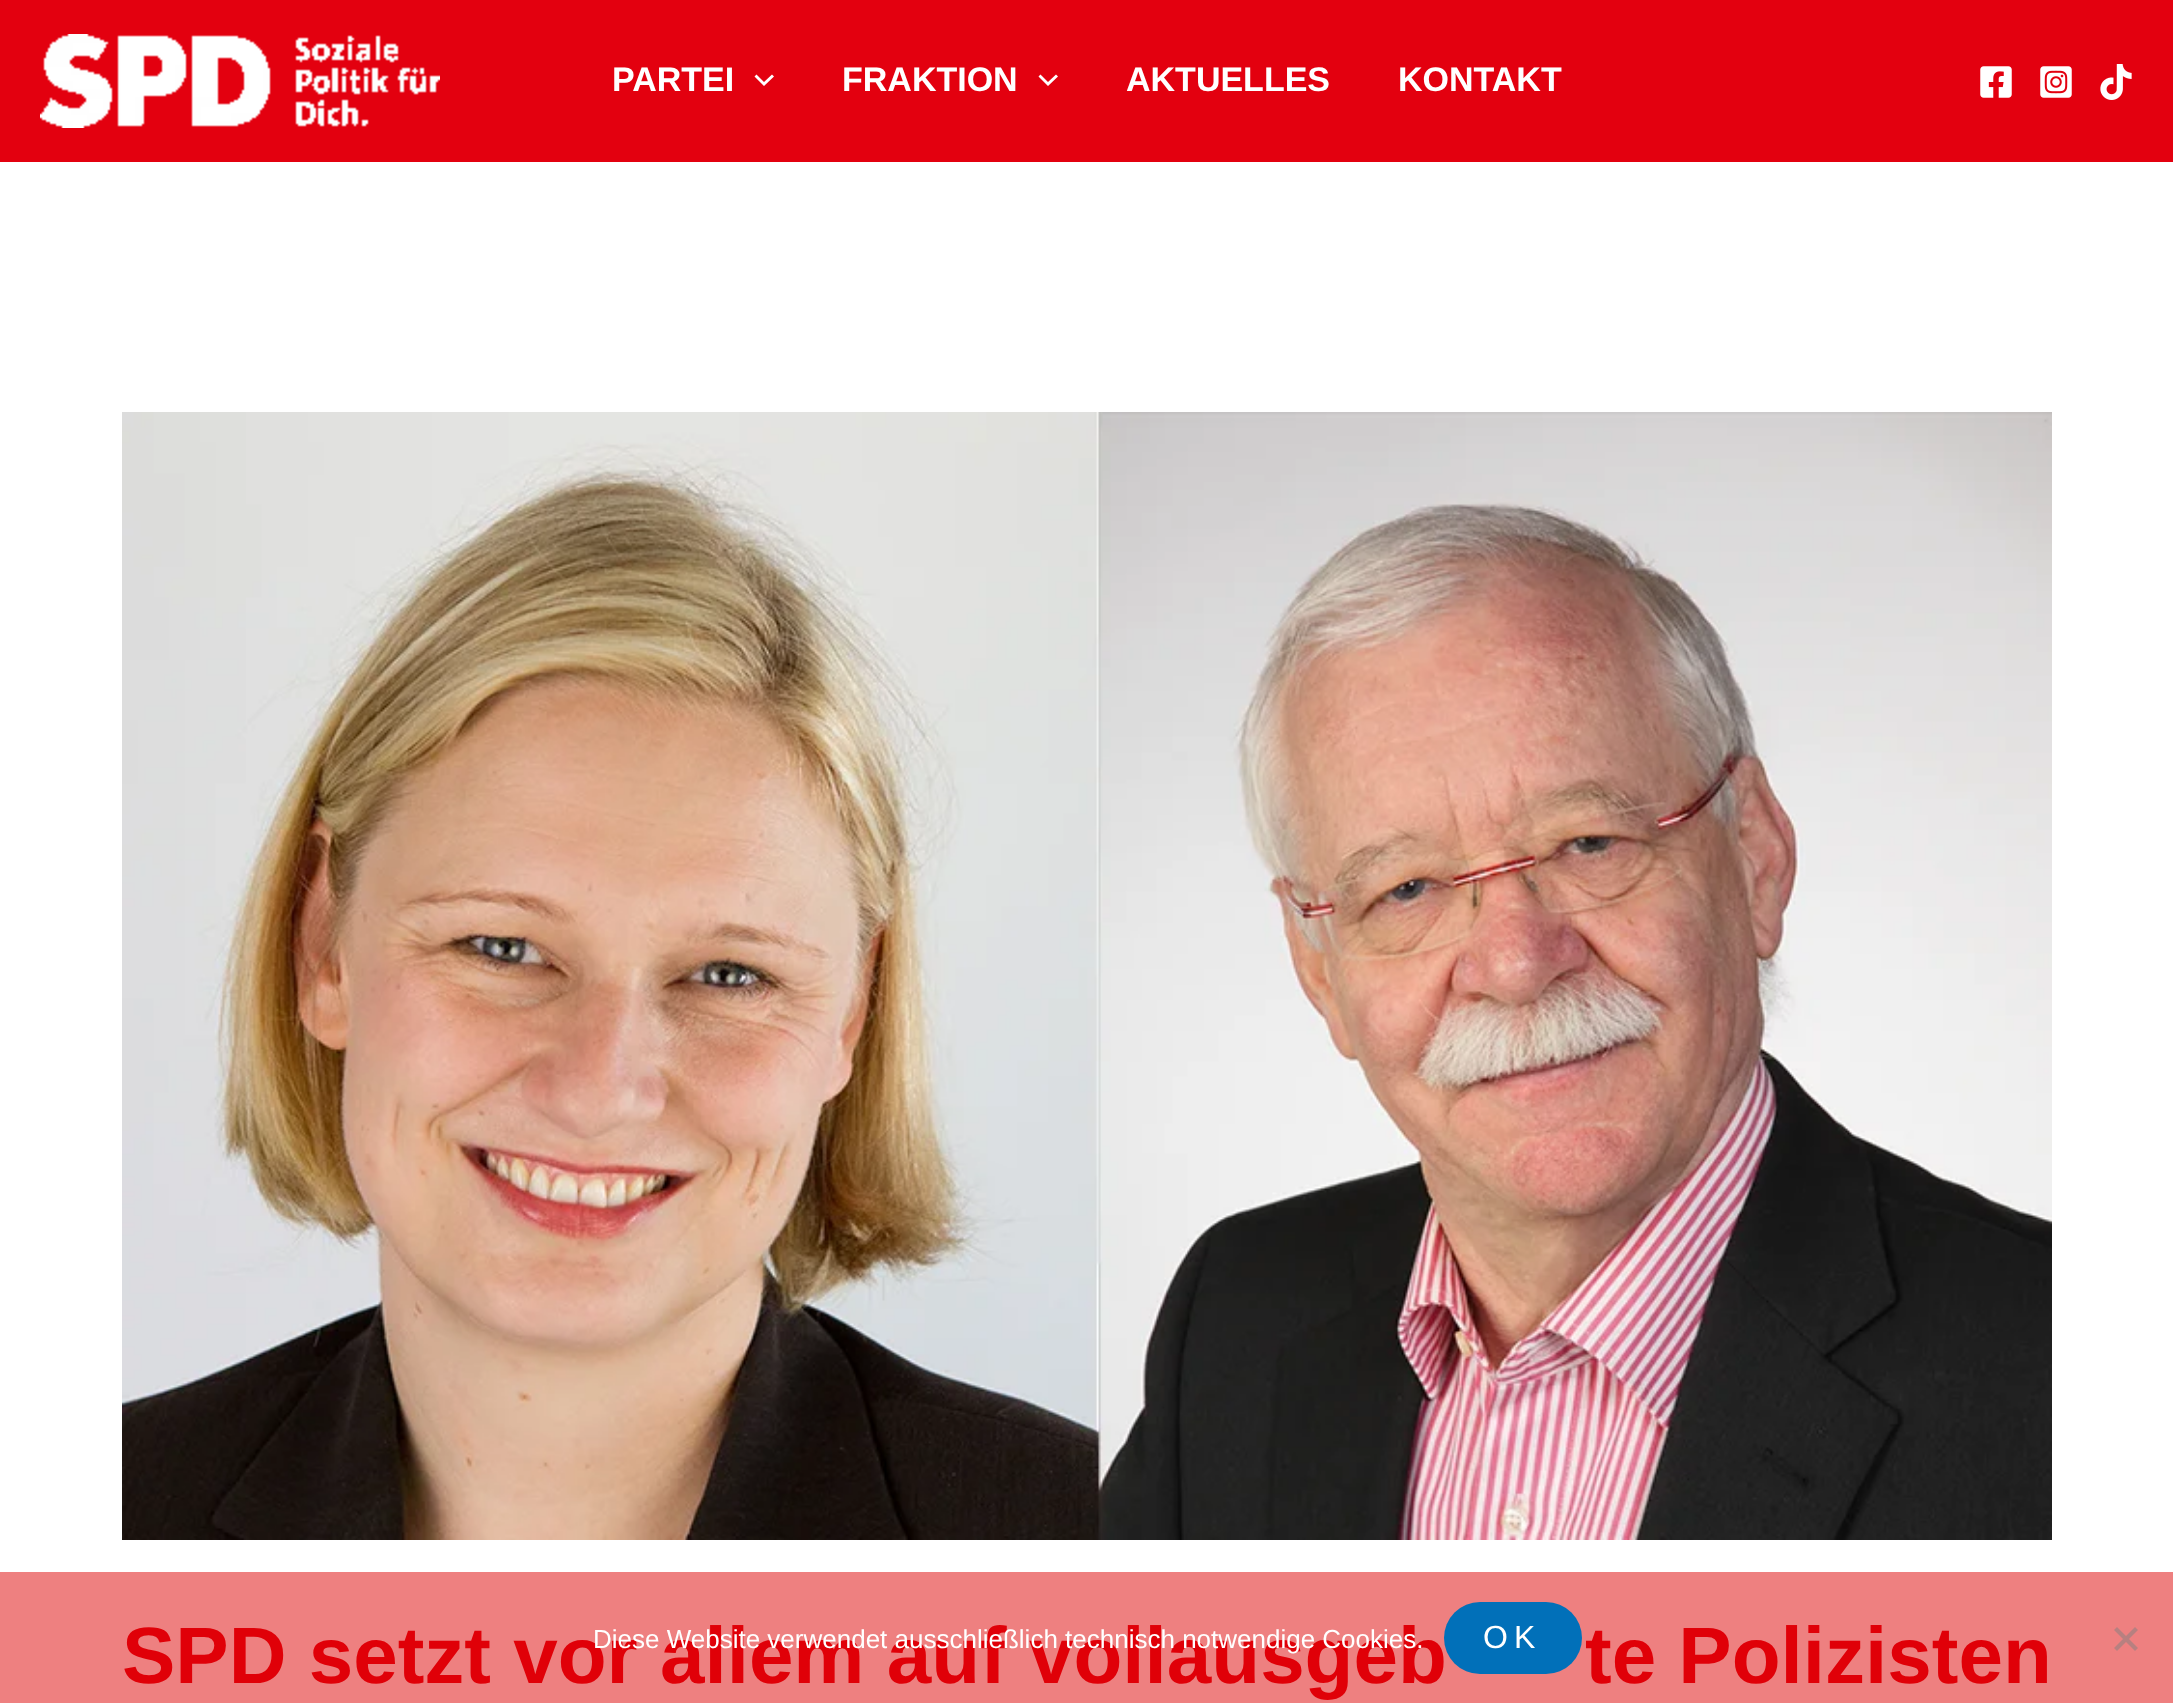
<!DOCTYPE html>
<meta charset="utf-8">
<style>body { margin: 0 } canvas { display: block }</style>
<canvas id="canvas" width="2173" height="1703"></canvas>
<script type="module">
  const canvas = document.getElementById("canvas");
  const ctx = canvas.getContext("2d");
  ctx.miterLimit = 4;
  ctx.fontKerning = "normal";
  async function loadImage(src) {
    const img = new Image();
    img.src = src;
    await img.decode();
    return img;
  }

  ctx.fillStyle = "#ffffff";
  ctx.fillRect(0, 0, 2173, 1703);
  ctx.fillStyle = "#ee8080";
  ctx.fillRect(0, 1572, 2173, 131);
  ctx.fillStyle = "#e3000f";
  ctx.fillRect(0, 0, 2173, 162);
  ctx.drawImage(await loadImage("img1.png"), 40, 34, 400, 94);
  ctx.font = "bold 34px Liberation Sans";
  ctx.fillStyle = "#ffffff";
  ctx.fillText("PARTEI", 612, 91);
  ctx.beginPath();
  ctx.moveTo(754.5, 76.5);
  ctx.lineTo(764, 86);
  ctx.lineTo(774, 76.5);
  ctx.lineTo(772, 74.5);
  ctx.lineTo(764, 82);
  ctx.lineTo(756.5, 74.5);
  ctx.closePath();
  ctx.fill();
  ctx.fillText("FRAKTION", 842, 91);
  ctx.beginPath();
  ctx.moveTo(1038.5, 76.5);
  ctx.lineTo(1048, 86);
  ctx.lineTo(1058, 76.5);
  ctx.lineTo(1056, 74.5);
  ctx.lineTo(1048, 82);
  ctx.lineTo(1040.5, 74.5);
  ctx.closePath();
  ctx.fill();
  ctx.fillText("AKTUELLES", 1126, 91);
  ctx.fillText("KONTAKT", 1398, 91);
  ctx.drawImage(await loadImage("img2.png"), 1980, 66, 32, 32);
  ctx.drawImage(await loadImage("img3.png"), 2040, 66, 32, 32);
  ctx.drawImage(await loadImage("img4.png"), 2100, 64, 32, 36);
  ctx.drawImage(await loadImage("img5.png"), 122, 412, 1930, 1128);
  ctx.font = "bold 80px Liberation Sans";
  ctx.fillStyle = "#e00008";
  ctx.fillText("SPD setzt vor allem auf vollausgeb", 122, 1683);
  ctx.fillText("te Polizisten", 1585, 1683);
  ctx.font = "26px Liberation Sans";
  ctx.fillStyle = "#ffffff";
  ctx.fillText("Diese Website verwendet ausschließlich technisch notwendige Cookies.", 593, 1648);
  ctx.fillStyle = "#0170b9";
  ctx.beginPath();
  ctx.roundRect(1444, 1602, 138, 72, 36);
  ctx.fill();
  ctx.letterSpacing = "6px";
  ctx.font = "32px Liberation Sans";
  ctx.fillStyle = "#ffffff";
  ctx.fillText("OK", 1483, 1648);
  ctx.fillStyle = "#b78080";
  ctx.beginPath();
  ctx.moveTo(2135, 1627);
  ctx.lineTo(2138, 1630);
  ctx.lineTo(2117, 1651);
  ctx.lineTo(2114, 1648);
  ctx.closePath();
  ctx.fill();
  ctx.beginPath();
  ctx.moveTo(2114, 1630);
  ctx.lineTo(2117, 1627);
  ctx.lineTo(2138, 1648);
  ctx.lineTo(2135, 1651);
  ctx.closePath();
  ctx.fill();
</script>
